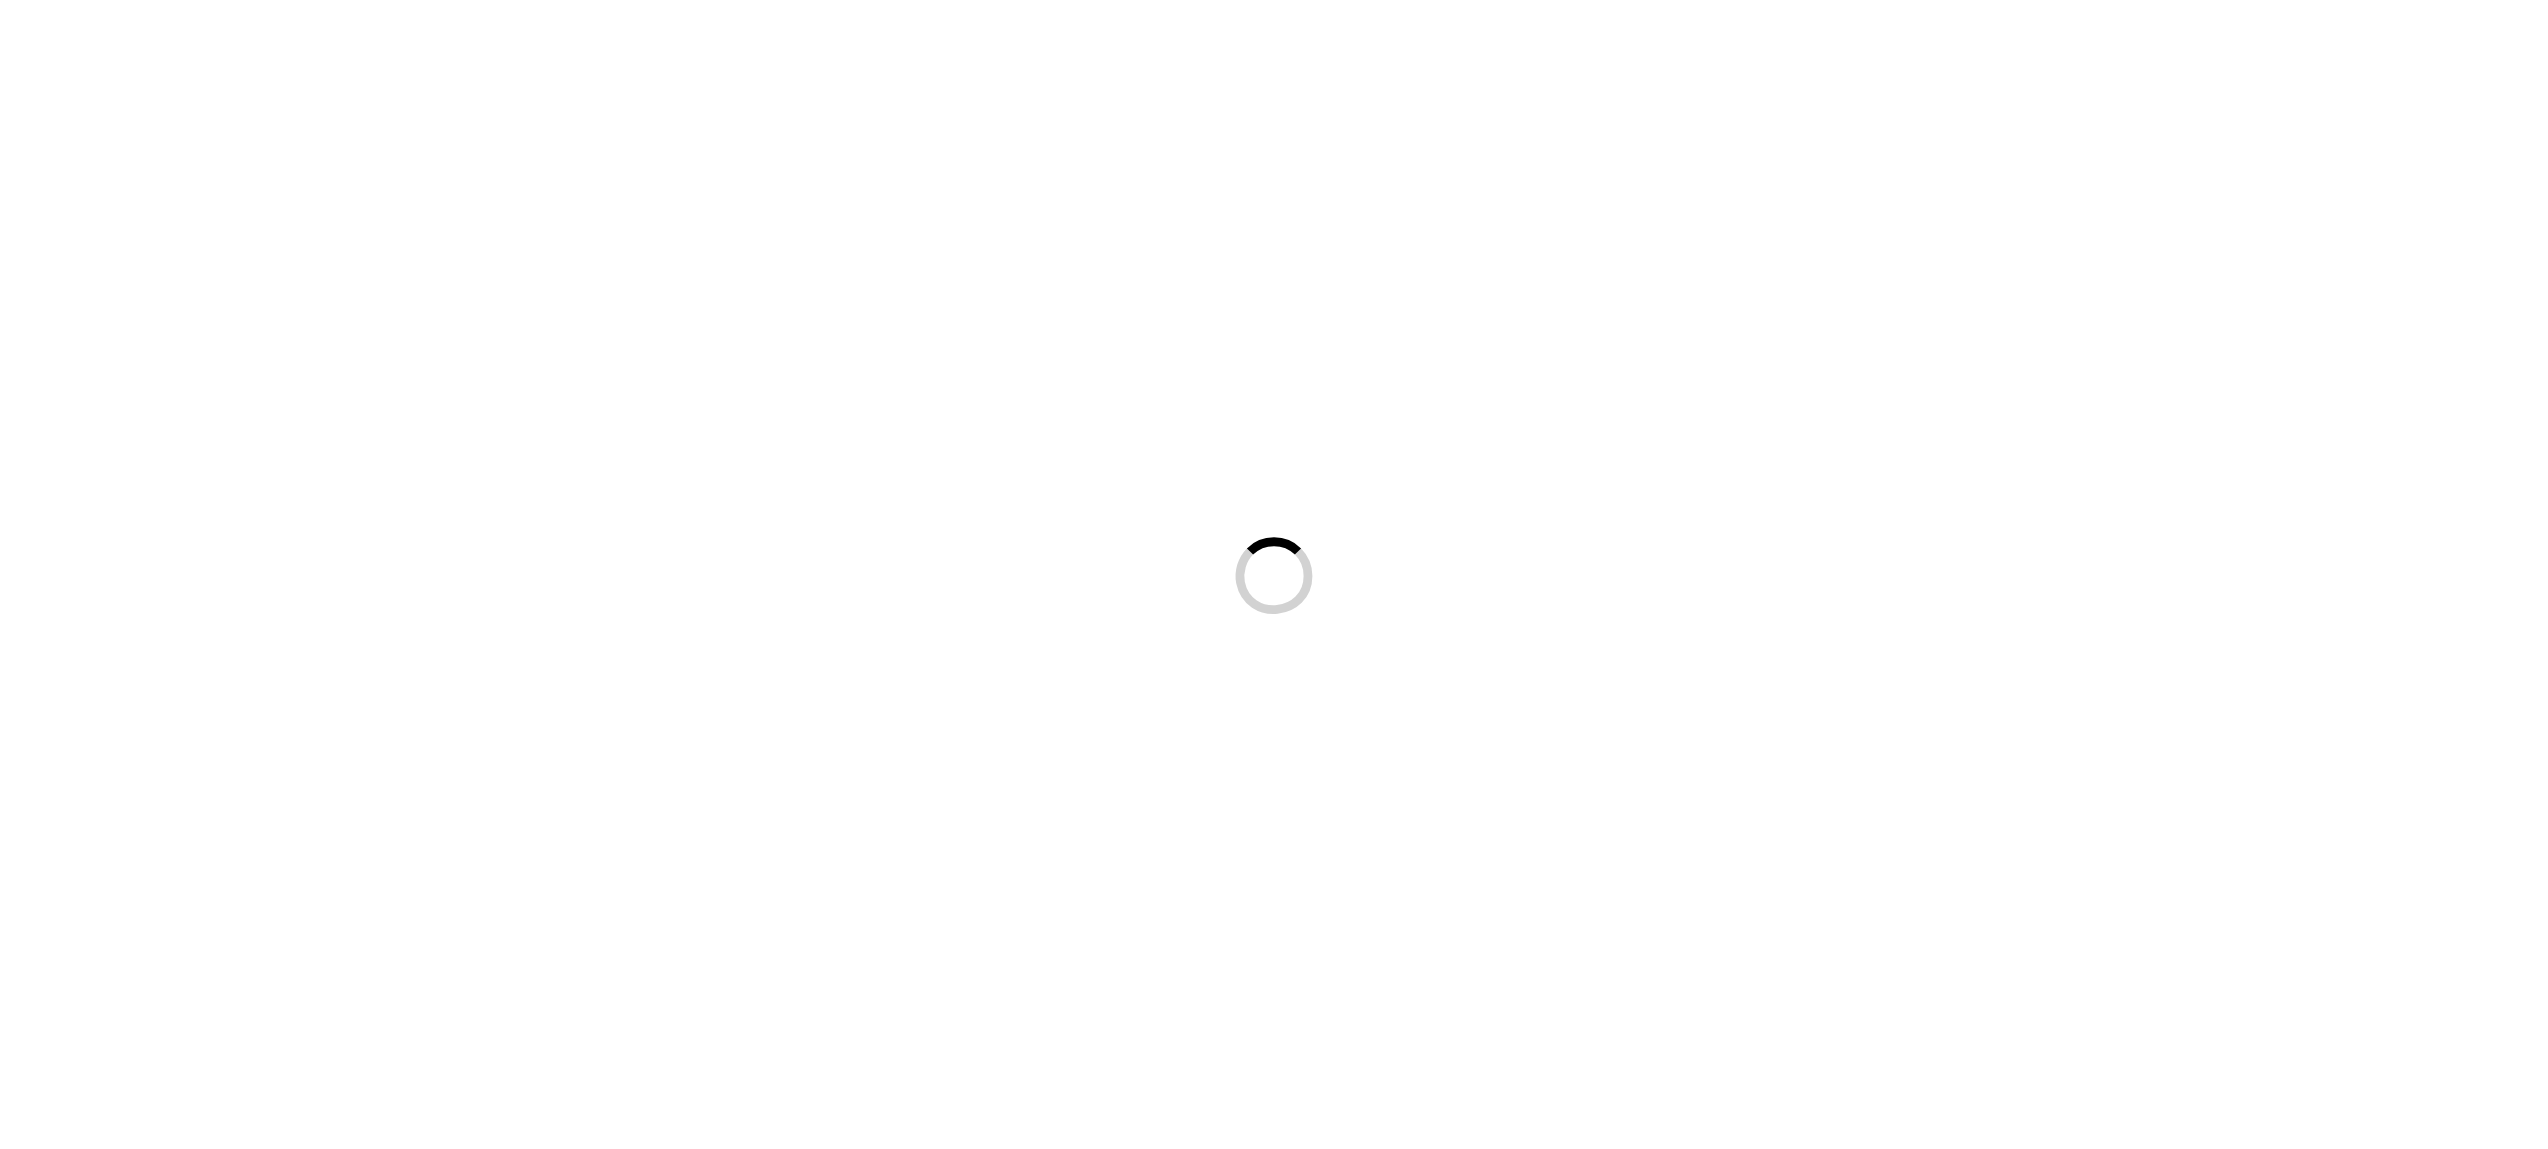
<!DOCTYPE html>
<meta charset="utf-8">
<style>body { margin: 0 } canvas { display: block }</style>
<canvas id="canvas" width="2548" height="1149"></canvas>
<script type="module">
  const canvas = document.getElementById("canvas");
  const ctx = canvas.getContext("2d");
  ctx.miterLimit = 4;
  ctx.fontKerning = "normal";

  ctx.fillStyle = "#ffffff";
  ctx.fillRect(0, 0, 2548, 1149);
  ctx.beginPath();
  ctx.moveTo(1250, 551.5);
  ctx.bezierCurveTo(1263, 538.5, 1285, 538.5, 1298, 551.5);
  ctx.strokeStyle = "#000000";
  ctx.lineWidth = 8.8;
  ctx.stroke();
  ctx.beginPath();
  ctx.moveTo(1298, 551.5);
  ctx.bezierCurveTo(1304.5, 558, 1308, 567, 1308, 576);
  ctx.bezierCurveTo(1308, 616.5, 1248.5, 622.5, 1240.5, 582.5);
  ctx.bezierCurveTo(1238.5, 571.5, 1242, 559.5, 1250, 551.5);
  ctx.strokeStyle = "rgba(29, 29, 29, 0.2)";
  ctx.stroke();
</script>
